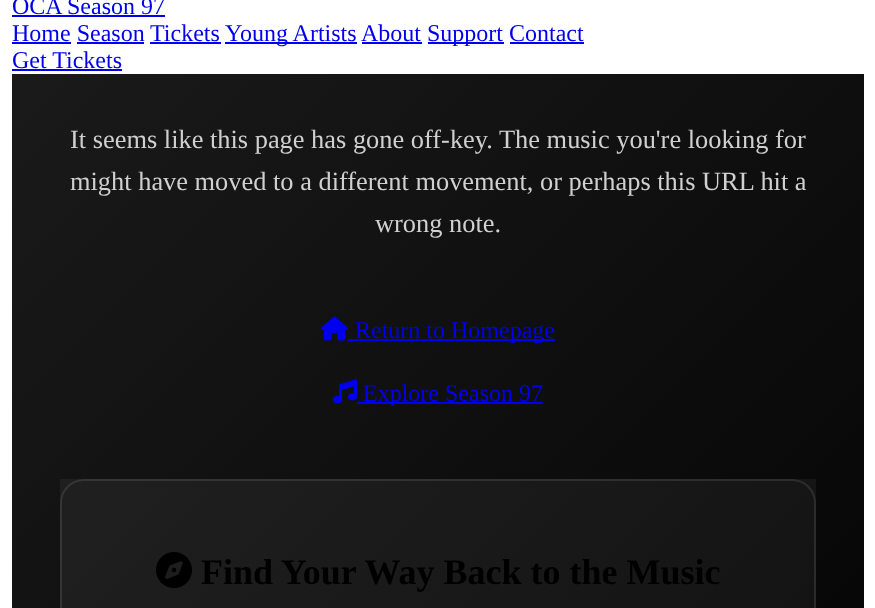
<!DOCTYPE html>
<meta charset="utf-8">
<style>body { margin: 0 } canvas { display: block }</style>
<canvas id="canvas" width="875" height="608"></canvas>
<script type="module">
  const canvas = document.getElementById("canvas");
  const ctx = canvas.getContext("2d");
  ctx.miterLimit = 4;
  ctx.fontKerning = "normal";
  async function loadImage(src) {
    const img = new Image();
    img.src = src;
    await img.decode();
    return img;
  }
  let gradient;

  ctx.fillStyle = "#ffffff";
  ctx.fillRect(0, 0, 875, 608);
  ctx.font = "24px Liberation Serif";
  ctx.fillStyle = "#0000ee";
  ctx.fillText("OCA", 12, 14);
  ctx.fillRect(12, 15, 153, 2);
  ctx.fillText("Season 97", 67, 14);
  ctx.fillText("Home Season", 12, 41);
  ctx.fillRect(12, 42, 59, 2);
  ctx.fillText("Tickets", 150, 41);
  ctx.fillRect(150, 42, 71, 2);
  ctx.fillRect(225, 42, 132, 2);
  ctx.fillText("Young Artists", 225, 41);
  ctx.fillText("About", 361, 41);
  ctx.fillRect(362, 42, 60, 2);
  ctx.fillRect(428, 42, 76, 2);
  ctx.fillText("Support Contact", 427, 41);
  ctx.fillRect(77, 42, 67, 2);
  ctx.fillRect(510, 42, 74, 2);
  ctx.fillText("Get Tickets", 12, 68);
  ctx.fillRect(12, 69, 110, 2);
  gradient = ctx.createLinearGradient(-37, 123, 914, 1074);
  gradient.addColorStop(0, "#1a1a1a");
  gradient.addColorStop(1, "#000000");
  ctx.fillStyle = gradient;
  ctx.fillRect(12, 74, 852, 534);
  ctx.font = "26.4px Liberation Serif";
  ctx.fillStyle = "#d0d0d0";
  ctx.fillText("It seems like this page has gone off-key. The music you're looking for", 70, 148);
  ctx.fillText("might have moved to a different movement, or perhaps this URL hit a", 70, 190);
  ctx.fillText("wrong note.", 375, 232);
  ctx.drawImage(await loadImage("img1.png"), 321, 316, 27, 25);
  ctx.fillStyle = "#0000ee";
  ctx.fillRect(348, 339, 207, 2);
  ctx.font = "24px Liberation Serif";
  ctx.fillText("Return to Homepage", 355, 338);
  ctx.drawImage(await loadImage("img2.png"), 333, 379, 24, 25);
  ctx.fillRect(357, 402, 186, 2);
  ctx.fillText("Explore Season 97", 363, 401);
  ctx.fillStyle = "rgba(255, 255, 255, 0.05)";
  ctx.fillRect(60, 479, 756, 129);
  ctx.beginPath();
  ctx.roundRect(61, 480, 754, 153, 23);
  ctx.strokeStyle = "rgba(255, 255, 255, 0.1)";
  ctx.lineWidth = 2;
  ctx.stroke();
  ctx.drawImage(await loadImage("img3.png"), 156, 552, 36, 36);
  ctx.font = "bold 36px Liberation Serif";
  ctx.fillStyle = "#000000";
  ctx.fillText("Find Your Way Back to the Music", 201, 584);
</script>
